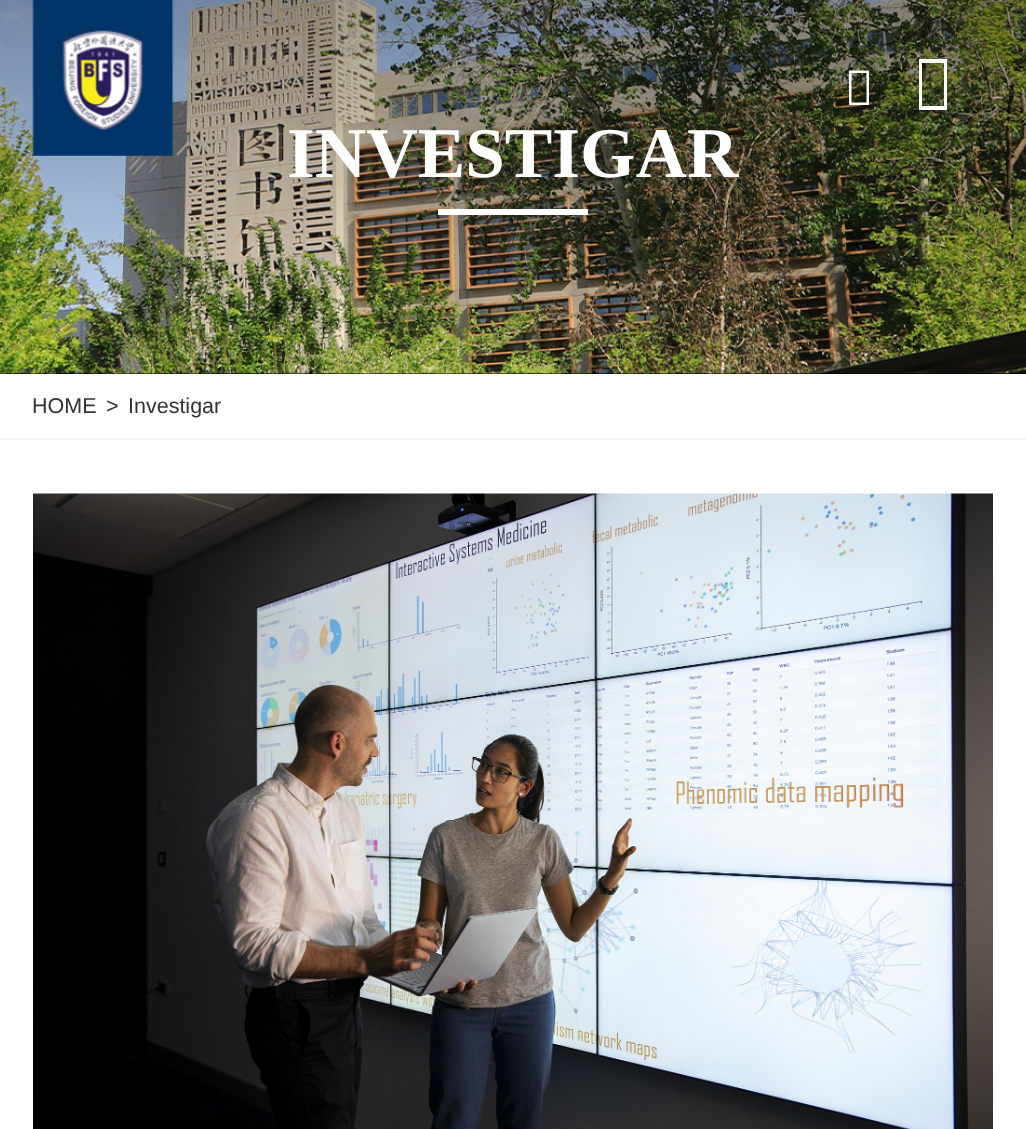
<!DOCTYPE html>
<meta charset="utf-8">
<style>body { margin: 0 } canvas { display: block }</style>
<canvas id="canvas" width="1026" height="1129"></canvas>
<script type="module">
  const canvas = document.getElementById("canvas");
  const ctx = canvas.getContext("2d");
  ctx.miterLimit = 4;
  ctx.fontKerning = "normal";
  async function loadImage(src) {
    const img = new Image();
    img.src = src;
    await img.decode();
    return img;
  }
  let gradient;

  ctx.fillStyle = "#ffffff";
  ctx.fillRect(0, 0, 1026, 1129);
  ctx.fillStyle = "#000000";
  ctx.fillRect(0, 373, 1026, 1);
  ctx.drawImage(await loadImage("img2.png"), 0, 0, 1026, 374);
  gradient = ctx.createLinearGradient(513, -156, 513, 374);
  gradient.addColorStop(0, "rgba(0, 0, 0, 0.5)");
  gradient.addColorStop(1, "rgba(0, 0, 0, 0)");
  ctx.fillStyle = gradient;
  ctx.fillRect(0, 0, 1026, 351);
  ctx.drawImage(await loadImage("img1.png"), 32, 0, 142, 156);
  ctx.fillStyle = "#ffffff";
  ctx.beginPath();
  ctx.moveTo(849, 105);
  ctx.lineTo(849, 70.5);
  ctx.lineTo(869, 70.5);
  ctx.lineTo(869, 105);
  ctx.closePath();
  ctx.moveTo(851.5, 102.5);
  ctx.lineTo(866.5, 102.5);
  ctx.lineTo(866.5, 73);
  ctx.lineTo(851.5, 73);
  ctx.closePath();
  ctx.fill();
  ctx.beginPath();
  ctx.moveTo(919, 110);
  ctx.lineTo(919, 59);
  ctx.lineTo(947, 59);
  ctx.lineTo(947, 110);
  ctx.closePath();
  ctx.moveTo(922, 106);
  ctx.lineTo(944, 106);
  ctx.lineTo(944, 63);
  ctx.lineTo(922, 63);
  ctx.closePath();
  ctx.fill();
  ctx.font = "bold 71.25px Liberation Serif";
  ctx.fillText("INVESTIGAR", 287, 177);
  ctx.fillRect(438, 209, 150, 6);
  ctx.fillStyle = "#f3f3f3";
  ctx.fillRect(0, 438, 1026, 2);
  ctx.font = "21.5px Liberation Sans";
  ctx.fillStyle = "#333333";
  ctx.fillText("HOME", 32, 413);
  ctx.fillText(">", 106, 413);
  ctx.fillText("Investigar", 128, 413);
  ctx.drawImage(await loadImage("img3.png"), 33, 493, 960, 636);
</script>
